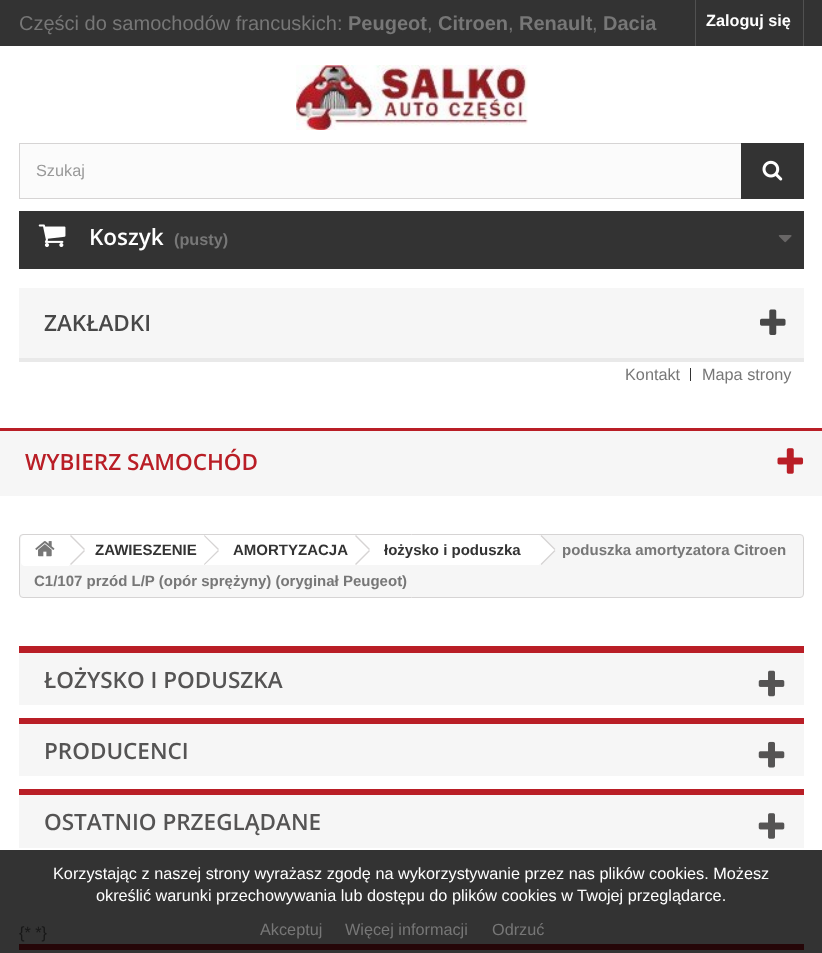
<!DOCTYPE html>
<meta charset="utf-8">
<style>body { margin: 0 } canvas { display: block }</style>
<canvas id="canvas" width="822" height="953"></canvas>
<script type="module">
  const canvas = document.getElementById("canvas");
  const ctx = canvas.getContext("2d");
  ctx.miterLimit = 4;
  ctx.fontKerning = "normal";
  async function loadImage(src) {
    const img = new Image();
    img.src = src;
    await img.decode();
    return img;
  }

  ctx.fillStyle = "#ffffff";
  ctx.fillRect(0, 0, 822, 953);
  ctx.fillStyle = "#333333";
  ctx.fillRect(0, 850, 822, 103);
  ctx.fillRect(0, 0, 822, 46);
  ctx.font = "20px Liberation Sans";
  ctx.fillStyle = "#777777";
  ctx.fillText("Części do samochodów francuskich:", 19, 30);
  ctx.font = "bold 20px Liberation Sans";
  ctx.fillText("Peugeot", 348, 30);
  ctx.font = "20px Liberation Sans";
  ctx.fillText(",", 427, 30);
  ctx.font = "bold 20px Liberation Sans";
  ctx.fillText("Citroen", 438, 30);
  ctx.font = "20px Liberation Sans";
  ctx.fillText(",", 508, 30);
  ctx.font = "bold 20px Liberation Sans";
  ctx.fillText("Renault", 519, 30);
  ctx.font = "20px Liberation Sans";
  ctx.fillText(",", 592, 30);
  ctx.font = "bold 20px Liberation Sans";
  ctx.fillText("Dacia", 603, 30);
  ctx.fillStyle = "#515151";
  ctx.fillRect(803, 0, 1, 46);
  ctx.fillRect(695, 0, 1, 46);
  ctx.font = "bold 16.25px Liberation Sans";
  ctx.fillStyle = "#ffffff";
  ctx.fillText("Zaloguj się", 706, 26);
  ctx.drawImage(await loadImage("img1.png"), 296, 65, 232, 65);
  ctx.fillStyle = "#fbfbfb";
  ctx.fillRect(20, 144, 721, 54);
  ctx.strokeStyle = "#d6d4d4";
  ctx.strokeRect(19.5, 143.5, 784, 55);
  ctx.font = "16.25px Liberation Sans";
  ctx.fillStyle = "#999999";
  ctx.fillText("Szukaj", 36, 176);
  ctx.fillStyle = "#333333";
  ctx.fillRect(741, 143, 63, 56);
  ctx.drawImage(await loadImage("img2.png"), 762, 160, 21, 21);
  ctx.fillRect(19, 211, 785, 58);
  ctx.drawImage(await loadImage("img3.png"), 38, 224, 28, 23);
  ctx.font = "600 22.5px Open Sans";
  ctx.fillStyle = "#ffffff";
  ctx.fillText("Koszyk", 89, 245);
  ctx.font = "bold 16.25px Liberation Sans";
  ctx.fillStyle = "#777777";
  ctx.fillText("(pusty)", 174, 245);
  ctx.drawImage(await loadImage("img4.png"), 778, 235, 14, 8);
  ctx.fillStyle = "#f6f6f6";
  ctx.fillRect(19, 288, 785, 70);
  ctx.fillStyle = "#e9e9e9";
  ctx.fillRect(19, 358, 785, 4);
  ctx.font = "600 22.5px Open Sans";
  ctx.fillStyle = "#484848";
  ctx.fillText("ZAKŁADKI", 44, 331);
  ctx.drawImage(await loadImage("img5.png"), 760, 309, 26, 26);
  ctx.font = "16.25px Liberation Sans";
  ctx.fillStyle = "#777777";
  ctx.fillText("Kontakt", 625, 380);
  ctx.fillStyle = "#333333";
  ctx.fillRect(690, 368, 1, 13);
  ctx.fillStyle = "#777777";
  ctx.fillText("Mapa strony", 702, 380);
  ctx.fillStyle = "#f6f6f6";
  ctx.fillRect(0, 431, 822, 65);
  ctx.fillStyle = "#b91e26";
  ctx.fillRect(0, 428, 822, 3);
  ctx.font = "600 22.5px Open Sans";
  ctx.fillText("WYBIERZ SAMOCHÓD", 25, 470);
  ctx.drawImage(await loadImage("img6.png"), 777, 448, 27, 26);
  ctx.fillStyle = "#f6f6f6";
  ctx.beginPath();
  ctx.roundRect(19.5, 534.5, 784, 63, 3.5);
  ctx.fill();
  ctx.stroke();
  ctx.fillStyle = "#ffffff";
  ctx.beginPath();
  ctx.roundRect(21, 535, 48, 31, [4, 0, 0, 4]);
  ctx.fill();
  ctx.drawImage(await loadImage("img7.png"), 35, 541, 20, 16);
  ctx.fillRect(69, 535, 136, 30);
  ctx.fillStyle = "#d6d4d4";
  ctx.beginPath();
  ctx.moveTo(71, 535);
  ctx.lineTo(85, 549);
  ctx.lineTo(84, 550);
  ctx.lineTo(70, 536);
  ctx.closePath();
  ctx.moveTo(84, 550);
  ctx.lineTo(85, 551);
  ctx.lineTo(71, 565);
  ctx.lineTo(70, 564);
  ctx.closePath();
  ctx.fill();
  ctx.font = "bold 15px Liberation Sans";
  ctx.fillStyle = "#333333";
  ctx.fillText("ZAWIESZENIE", 95, 555);
  ctx.fillStyle = "#ffffff";
  ctx.beginPath();
  ctx.moveTo(218, 536);
  ctx.lineTo(230.5, 548);
  ctx.bezierCurveTo(231.5, 549, 231.5, 551, 230.5, 552);
  ctx.lineTo(218, 564);
  ctx.bezierCurveTo(217, 565, 215.5, 565, 214.5, 564);
  ctx.lineTo(202, 552);
  ctx.bezierCurveTo(201, 551, 201, 549, 202, 548);
  ctx.lineTo(214.5, 536);
  ctx.bezierCurveTo(215.5, 535, 217, 535, 218, 536);
  ctx.closePath();
  ctx.fill();
  ctx.fillRect(205, 535, 151, 30);
  ctx.fillStyle = "#d6d4d4";
  ctx.beginPath();
  ctx.moveTo(204.5, 535);
  ctx.lineTo(219, 549);
  ctx.lineTo(218, 550);
  ctx.lineTo(204, 536);
  ctx.closePath();
  ctx.moveTo(218, 550);
  ctx.lineTo(219, 551);
  ctx.lineTo(204.5, 565);
  ctx.lineTo(204, 564);
  ctx.closePath();
  ctx.fill();
  ctx.fillStyle = "#333333";
  ctx.fillText("AMORTYZACJA", 233, 555);
  ctx.fillStyle = "#ffffff";
  ctx.beginPath();
  ctx.moveTo(369.5, 536);
  ctx.lineTo(381.5, 548);
  ctx.bezierCurveTo(382.5, 549, 382.5, 551, 381.5, 552);
  ctx.lineTo(369.5, 564);
  ctx.bezierCurveTo(368.5, 565, 366.5, 565, 366, 564);
  ctx.lineTo(353.5, 552);
  ctx.bezierCurveTo(352.5, 551, 352.5, 549, 353.5, 548);
  ctx.lineTo(366, 536);
  ctx.bezierCurveTo(366.5, 535, 368.5, 535, 369.5, 536);
  ctx.closePath();
  ctx.fill();
  ctx.fillRect(356, 535, 183, 30);
  ctx.fillStyle = "#d6d4d4";
  ctx.beginPath();
  ctx.moveTo(356, 535);
  ctx.lineTo(370, 549);
  ctx.lineTo(369, 550);
  ctx.lineTo(355, 536);
  ctx.closePath();
  ctx.moveTo(369, 550);
  ctx.lineTo(370, 551);
  ctx.lineTo(356, 565);
  ctx.lineTo(355, 564);
  ctx.closePath();
  ctx.fill();
  ctx.fillStyle = "#333333";
  ctx.fillText("łożysko i poduszka", 384, 555);
  ctx.fillStyle = "#ffffff";
  ctx.beginPath();
  ctx.moveTo(542.5, 536);
  ctx.lineTo(554.5, 548);
  ctx.bezierCurveTo(555.5, 549, 555.5, 551, 554.5, 552);
  ctx.lineTo(542.5, 564);
  ctx.bezierCurveTo(541.5, 565, 539.5, 565, 538.5, 564);
  ctx.lineTo(526.5, 552);
  ctx.bezierCurveTo(525.5, 551, 525.5, 549, 526.5, 548);
  ctx.lineTo(538.5, 536);
  ctx.bezierCurveTo(539.5, 535, 541.5, 535, 542.5, 536);
  ctx.closePath();
  ctx.fill();
  ctx.fillStyle = "#d6d4d4";
  ctx.beginPath();
  ctx.moveTo(541.5, 535);
  ctx.lineTo(555.5, 549);
  ctx.lineTo(554.5, 550);
  ctx.lineTo(540.5, 536);
  ctx.closePath();
  ctx.moveTo(554.5, 550);
  ctx.lineTo(555.5, 551);
  ctx.lineTo(541.5, 565);
  ctx.lineTo(540.5, 564);
  ctx.closePath();
  ctx.fill();
  ctx.fillStyle = "#777777";
  ctx.fillText("poduszka amortyzatora Citroen", 562, 555);
  ctx.fillText("C1/107 przód L/P (opór sprężyny) (oryginał Peugeot)", 34, 586);
  ctx.fillStyle = "#f6f6f6";
  ctx.fillRect(19, 653, 785, 52);
  ctx.fillStyle = "#b91e26";
  ctx.fillRect(19, 646, 785, 7);
  ctx.font = "600 22.5px Open Sans";
  ctx.fillStyle = "#555454";
  ctx.fillText("ŁOŻYSKO I PODUSZKA", 44, 688);
  ctx.drawImage(await loadImage("img8.png"), 758, 670, 27, 27);
  ctx.fillStyle = "#f6f6f6";
  ctx.fillRect(19, 724, 785, 52);
  ctx.fillStyle = "#b91e26";
  ctx.fillRect(19, 718, 785, 6);
  ctx.fillStyle = "#555454";
  ctx.fillText("PRODUCENCI", 44, 759);
  ctx.drawImage(await loadImage("img9.png"), 758, 741, 27, 27);
  ctx.fillStyle = "#f6f6f6";
  ctx.fillRect(19, 795, 785, 53);
  ctx.fillStyle = "#b91e26";
  ctx.fillRect(19, 789, 785, 6);
  ctx.fillStyle = "#555454";
  ctx.fillText("OSTATNIO PRZEGLĄDANE", 44, 830);
  ctx.drawImage(await loadImage("img10.png"), 758, 813, 27, 26);
  ctx.font = "16.25px Liberation Sans";
  ctx.fillStyle = "#181818";
  ctx.fillText("{* *}", 19, 938);
  ctx.fillStyle = "#250608";
  ctx.fillRect(19, 944, 785, 6);
  ctx.fillStyle = "#ffffff";
  ctx.fillText("Korzystając z naszej strony wyrażasz zgodę na wykorzystywanie przez nas plików cookies. Możesz", 53, 879);
  ctx.fillText("określić warunki przechowywania lub dostępu do plików cookies w Twojej przeglądarce.", 96, 901);
  ctx.fillStyle = "#777777";
  ctx.fillText("Akceptuj", 260, 935);
  ctx.fillText("Więcej informacji", 345, 935);
  ctx.fillText("Odrzuć", 492, 935);
</script>
